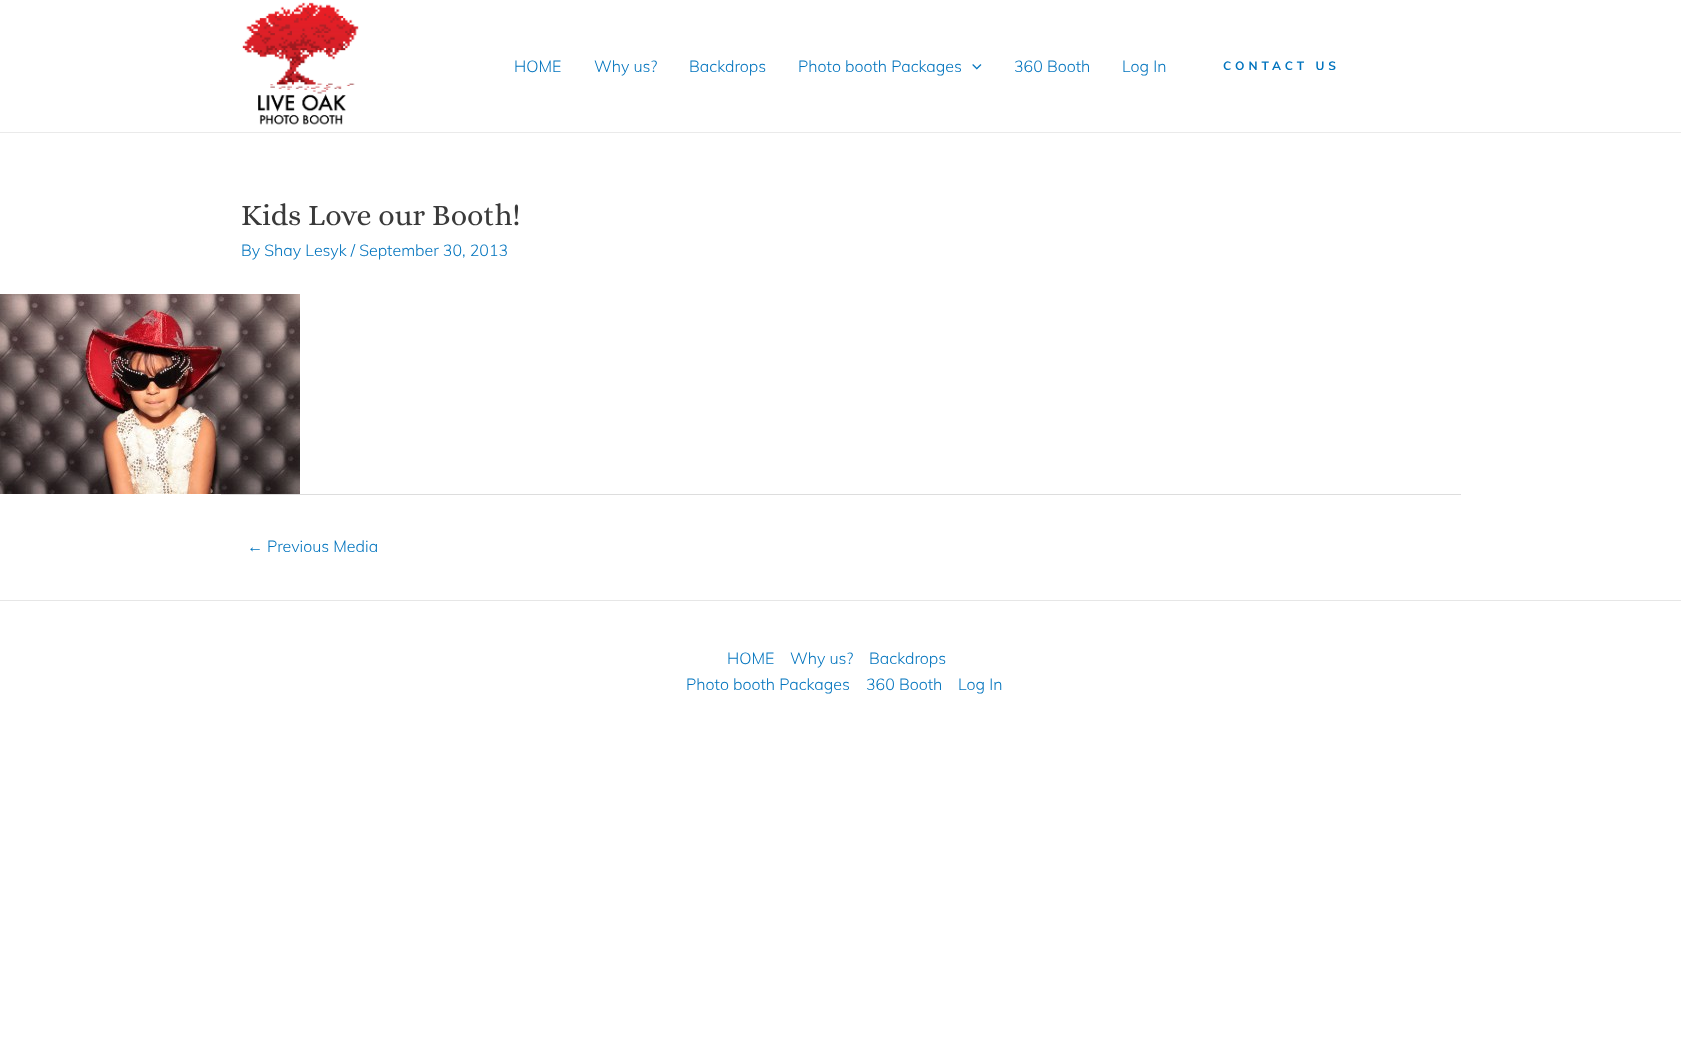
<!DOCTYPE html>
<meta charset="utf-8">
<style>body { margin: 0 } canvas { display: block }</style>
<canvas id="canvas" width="1681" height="1040"></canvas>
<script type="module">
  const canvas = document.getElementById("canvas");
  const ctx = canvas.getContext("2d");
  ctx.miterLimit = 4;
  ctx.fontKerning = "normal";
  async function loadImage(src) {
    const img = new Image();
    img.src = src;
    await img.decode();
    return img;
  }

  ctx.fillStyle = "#ffffff";
  ctx.fillRect(0, 0, 1681, 1040);
  ctx.fillStyle = "#eaeaea";
  ctx.fillRect(0, 132, 1681, 1);
  ctx.drawImage(await loadImage("img1.png"), 242, 2, 117, 123);
  ctx.font = "300 16px Muli";
  ctx.fillStyle = "#0274be";
  ctx.fillText("HOME", 514, 72);
  ctx.fillText("Why us?", 594, 72);
  ctx.fillText("Backdrops", 689, 72);
  ctx.fillText("Photo booth Packages", 798, 72);
  ctx.drawImage(await loadImage("img2.png"), 972, 64, 10, 6);
  ctx.fillText("360 Booth", 1014, 72);
  ctx.fillText("Log In", 1122, 72);
  ctx.letterSpacing = "4px";
  ctx.font = "bold 12px Muli";
  ctx.fillText("CONTACT US", 1223, 70);
  ctx.letterSpacing = "0px";
  ctx.font = "30px Alice";
  ctx.fillStyle = "#3a3a3a";
  ctx.fillText("Kids Love our Booth!", 241, 225);
  ctx.font = "300 16px Muli";
  ctx.fillStyle = "#0274be";
  ctx.fillText("By Shay Lesyk / September 30, 2013", 241, 256);
  ctx.drawImage(await loadImage("img3.png"), 0, 294, 300, 200);
  ctx.fillStyle = "#dddddd";
  ctx.fillRect(221, 494, 1240, 1);
  ctx.font = "16px Liberation Sans";
  ctx.fillStyle = "#0274be";
  ctx.fillText("←", 247, 552);
  ctx.font = "300 16px Muli";
  ctx.fillText("Previous Media", 267, 552);
  ctx.fillStyle = "#e6e6e6";
  ctx.fillRect(0, 600, 1681, 1);
  ctx.fillStyle = "#0274be";
  ctx.fillText("HOME", 727, 664);
  ctx.fillText("Why us?", 790, 664);
  ctx.fillText("Backdrops", 869, 664);
  ctx.fillText("Photo booth Packages", 686, 690);
  ctx.fillText("360 Booth", 866, 690);
  ctx.fillText("Log In", 958, 690);
</script>
